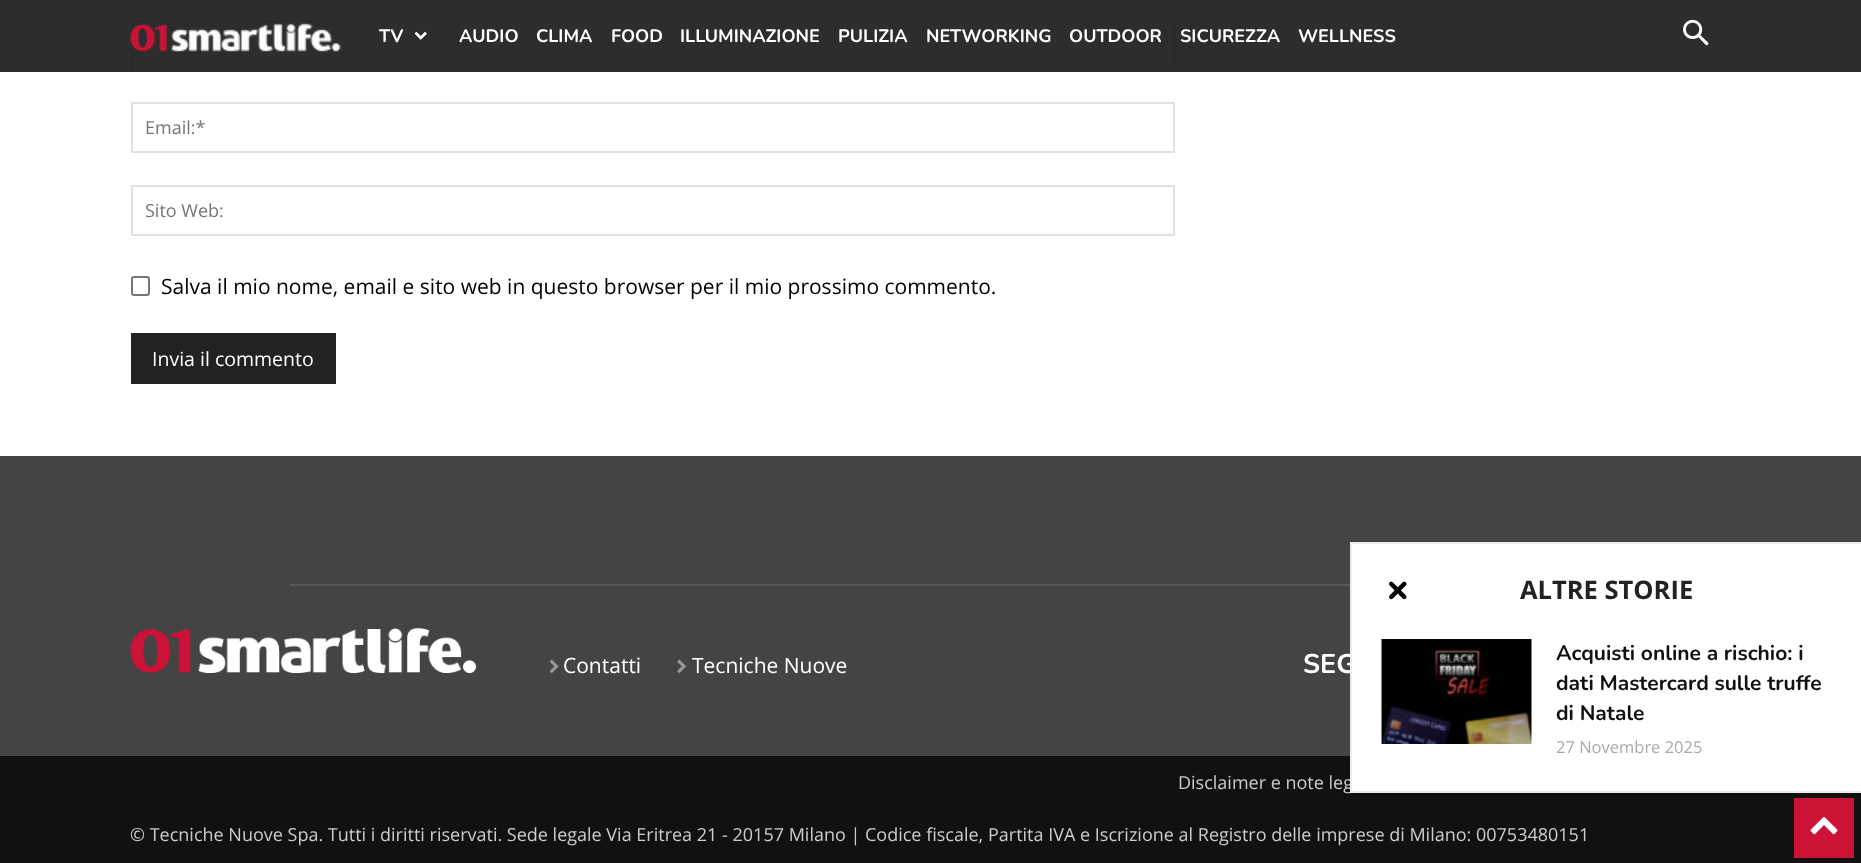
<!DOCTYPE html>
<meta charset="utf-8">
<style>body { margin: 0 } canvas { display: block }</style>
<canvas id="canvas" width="1861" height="863"></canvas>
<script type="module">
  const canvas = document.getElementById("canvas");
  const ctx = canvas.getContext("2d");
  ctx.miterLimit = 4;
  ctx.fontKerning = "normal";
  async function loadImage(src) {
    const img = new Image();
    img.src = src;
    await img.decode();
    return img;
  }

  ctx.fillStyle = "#ffffff";
  ctx.fillRect(0, 0, 1861, 863);
  ctx.fillStyle = "#2d2d2d";
  ctx.fillRect(0, 0, 1861, 72);
  ctx.strokeStyle = "#2a2a2a";
  ctx.lineWidth = 2;
  ctx.strokeRect(132, 21, 1042, 49);
  ctx.drawImage(await loadImage("img1.png"), 130, 23, 211, 29);
  ctx.font = "200 18px Nunito";
  ctx.fillStyle = "#ffffff";
  ctx.fillText("TV", 379, 42);
  ctx.drawImage(await loadImage("img2.png"), 414, 31, 13, 9);
  ctx.fillText("AUDIO", 459, 42);
  ctx.fillText("CLIMA", 536, 42);
  ctx.fillText("FOOD", 611, 42);
  ctx.fillText("ILLUMINAZIONE", 680, 42);
  ctx.fillText("PULIZIA", 838, 42);
  ctx.fillText("NETWORKING", 926, 42);
  ctx.fillText("OUTDOOR", 1069, 42);
  ctx.fillText("SICUREZZA", 1180, 42);
  ctx.fillText("WELLNESS", 1298, 42);
  ctx.drawImage(await loadImage("img3.png"), 1683, 19, 26, 27);
  ctx.strokeStyle = "#e1e1e1";
  ctx.strokeRect(132, 103, 1042, 49);
  ctx.font = "18px Open Sans";
  ctx.fillStyle = "#757575";
  ctx.fillText("Email:*", 145, 134);
  ctx.strokeRect(132, 186, 1042, 49);
  ctx.save();
  ctx.beginPath();
  ctx.rect(146, 198, 1014, 26);
  ctx.clip();
  ctx.fillText("Sito Web:", 145, 217);
  ctx.restore();
  ctx.beginPath();
  ctx.roundRect(132, 277, 17, 18, 2);
  ctx.strokeStyle = "#767676";
  ctx.stroke();
  ctx.font = "21px Open Sans";
  ctx.fillStyle = "#000000";
  ctx.fillText("Salva il mio nome, email e sito web in questo browser per il mio prossimo commento.", 161, 294);
  ctx.fillStyle = "#222222";
  ctx.fillRect(131, 333, 205, 51);
  ctx.font = "19.5px Open Sans";
  ctx.fillStyle = "#ffffff";
  ctx.fillText("Invia il commento", 152, 366);
  ctx.fillStyle = "#444444";
  ctx.fillRect(0, 456, 1861, 300);
  ctx.fillStyle = "#575757";
  ctx.fillRect(290, 584, 1060, 2);
  ctx.drawImage(await loadImage("img4.png"), 130, 628, 347, 45);
  ctx.drawImage(await loadImage("img5.png"), 549, 659, 10, 15);
  ctx.font = "21px Open Sans";
  ctx.fillStyle = "#ffffff";
  ctx.fillText("Contatti", 563, 673);
  ctx.drawImage(await loadImage("img6.png"), 677, 659, 9, 14);
  ctx.fillText("Tecniche Nuove", 692, 673);
  ctx.font = "200 27px Nunito";
  ctx.fillText("SEG", 1303, 673);
  ctx.fillStyle = "#111111";
  ctx.fillRect(0, 756, 1861, 107);
  ctx.font = "18px Open Sans";
  ctx.fillStyle = "#cccccc";
  ctx.fillText("Disclaimer e note leg", 1178, 789);
  ctx.fillText("© Tecniche Nuove Spa. Tutti i diritti riservati. Sede legale Via Eritrea 21 - 20157 Milano | Codice fiscale, Partita IVA e Iscrizione al Registro delle imprese di Milano: 00753480151", 130, 841);
  ctx.fillStyle = "#ffffff";
  ctx.fillRect(1352, 544, 509, 247);
  ctx.fillStyle = "#ededed";
  ctx.fillRect(1350, 542, 511, 2);
  ctx.fillRect(1350, 791, 511, 2);
  ctx.fillRect(1350, 542, 2, 250);
  ctx.drawImage(await loadImage("img7.png"), 1389, 581, 18, 19);
  ctx.font = "bold 25.5px Open Sans";
  ctx.fillStyle = "#222222";
  ctx.fillText("ALTRE STORIE", 1520, 599);
  ctx.drawImage(await loadImage("img8.png"), 1381, 639, 151, 105);
  ctx.font = "200 21px Nunito";
  ctx.fillStyle = "#111111";
  ctx.fillText("Acquisti online a rischio: i", 1556, 660);
  ctx.fillText("dati Mastercard sulle truffe", 1556, 690);
  ctx.fillText("di Natale", 1556, 720);
  ctx.font = "16.5px Open Sans";
  ctx.fillStyle = "#aaaaaa";
  ctx.fillText("27 Novembre 2025", 1556, 753);
  ctx.fillStyle = "#cc1235";
  ctx.fillRect(1794, 798, 60, 60);
  ctx.drawImage(await loadImage("img9.png"), 1810, 816, 28, 19);
</script>
